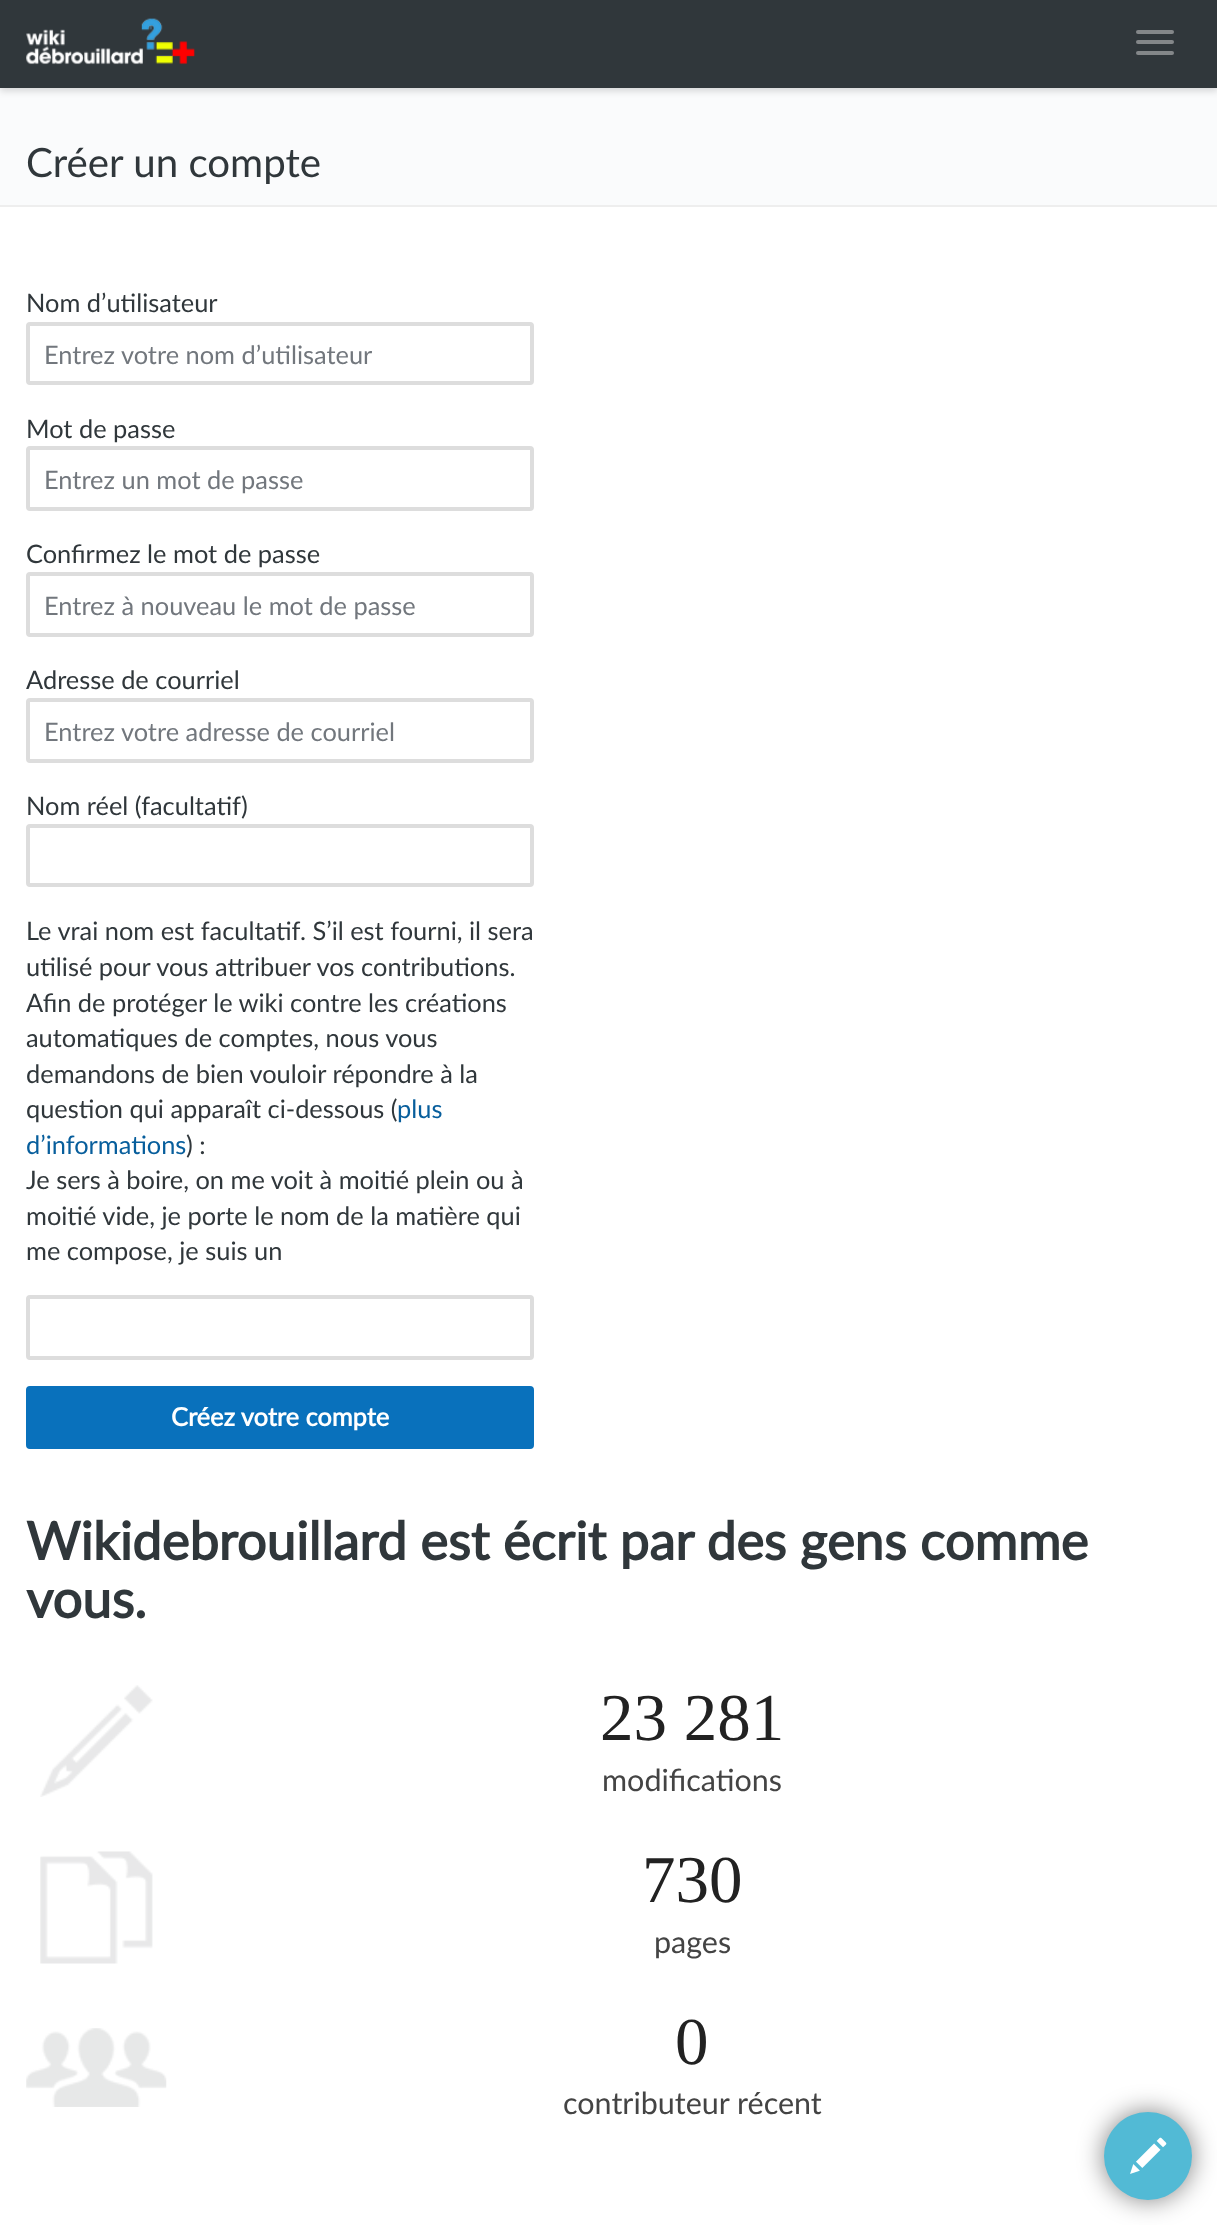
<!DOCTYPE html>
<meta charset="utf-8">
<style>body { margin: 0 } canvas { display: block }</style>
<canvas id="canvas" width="1217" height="2225"></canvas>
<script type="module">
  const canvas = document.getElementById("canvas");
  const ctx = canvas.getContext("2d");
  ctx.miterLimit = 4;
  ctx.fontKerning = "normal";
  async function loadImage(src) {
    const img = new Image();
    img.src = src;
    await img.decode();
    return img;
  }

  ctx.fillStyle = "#ffffff";
  ctx.fillRect(0, 0, 1217, 2225);
  ctx.fillStyle = "#fafbfc";
  ctx.fillRect(0, 88, 1217, 117);
  ctx.fillStyle = "rgba(0, 0, 0, 0.15)";
  ctx.filter = "blur(3.5px)";
  ctx.beginPath();
  ctx.rect(0, 4, 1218, 87);
  ctx.fill();
  ctx.filter = "none";
  ctx.fillStyle = "#30373b";
  ctx.fillRect(0, 0, 1217, 88);
  ctx.drawImage(await loadImage("img1.png"), 26, 18, 169, 47);
  ctx.fillStyle = "#838789";
  ctx.beginPath();
  ctx.roundRect(1136, 30, 38, 4, 2);
  ctx.fill();
  ctx.beginPath();
  ctx.roundRect(1136, 40, 38, 4, 2);
  ctx.fill();
  ctx.beginPath();
  ctx.roundRect(1136, 51, 38, 4, 2);
  ctx.fill();
  ctx.fillStyle = "#eeeeee";
  ctx.fillRect(0, 205, 1217, 2);
  ctx.font = "40.25px Lato";
  ctx.fillStyle = "#30373b";
  ctx.fillText("Créer un compte", 26, 177);
  ctx.font = "25.4px Lato";
  ctx.fillText("Nom d’utilisateur", 26, 312);
  ctx.beginPath();
  ctx.roundRect(28, 324, 504, 59, 2);
  ctx.strokeStyle = "#dddddd";
  ctx.lineWidth = 4;
  ctx.stroke();
  ctx.fillStyle = "#72777d";
  ctx.fillText("Entrez votre nom d’utilisateur", 44, 364);
  ctx.fillStyle = "#30373b";
  ctx.fillText("Mot de passe", 26, 438);
  ctx.beginPath();
  ctx.roundRect(28, 448, 504, 61, 2);
  ctx.stroke();
  ctx.fillStyle = "#72777d";
  ctx.fillText("Entrez un mot de passe", 44, 489);
  ctx.fillStyle = "#30373b";
  ctx.fillText("Confirmez le mot de passe", 26, 563);
  ctx.beginPath();
  ctx.roundRect(28, 574, 504, 61, 2);
  ctx.stroke();
  ctx.fillStyle = "#72777d";
  ctx.fillText("Entrez à nouveau le mot de passe", 44, 615);
  ctx.fillStyle = "#30373b";
  ctx.fillText("Adresse de courriel", 26, 689);
  ctx.beginPath();
  ctx.roundRect(28, 700, 504, 61, 2);
  ctx.stroke();
  ctx.fillStyle = "#72777d";
  ctx.fillText("Entrez votre adresse de courriel", 44, 741);
  ctx.fillStyle = "#30373b";
  ctx.fillText("Nom réel (facultatif)", 26, 815);
  ctx.beginPath();
  ctx.roundRect(28, 826, 504, 59, 2);
  ctx.stroke();
  ctx.fillText("Le vrai nom est facultatif. S’il est fourni, il sera", 26, 940);
  ctx.fillText("utilisé pour vous attribuer vos contributions.", 26, 976);
  ctx.fillText("Afin de protéger le wiki contre les créations", 26, 1012);
  ctx.fillText("automatiques de comptes, nous vous", 26, 1047);
  ctx.fillText("demandons de bien vouloir répondre à la", 26, 1083);
  ctx.fillText("question qui apparaît ci-dessous (", 26, 1118);
  ctx.fillStyle = "#075e9c";
  ctx.fillText("plus", 397, 1118);
  ctx.fillText("d’informations", 26, 1154);
  ctx.fillStyle = "#30373b";
  ctx.fillText(") :", 186, 1154);
  ctx.fillText("Je sers à boire, on me voit à moitié plein ou à", 26, 1189);
  ctx.fillText("moitié vide, je porte le nom de la matière qui", 26, 1225);
  ctx.fillText("me compose, je suis un", 26, 1260);
  ctx.beginPath();
  ctx.roundRect(28, 1297, 504, 61, 2);
  ctx.stroke();
  ctx.fillStyle = "#0971bc";
  ctx.beginPath();
  ctx.roundRect(27, 1387, 506, 61, 3);
  ctx.fill();
  ctx.strokeStyle = "#0971bc";
  ctx.lineWidth = 2;
  ctx.stroke();
  ctx.font = "bold 25.4px Lato";
  ctx.fillStyle = "#ffffff";
  ctx.fillText("Créez votre compte", 171, 1426);
  ctx.font = "bold 52.5px Lato";
  ctx.fillStyle = "#30373b";
  ctx.fillText("Wikidebrouillard est écrit par des gens comme", 26, 1560);
  ctx.fillText("vous.", 26, 1618);
  ctx.drawImage(await loadImage("img2.png"), 40, 1685, 113, 112);
  ctx.font = "67px Liberation Serif";
  ctx.fillStyle = "#222222";
  ctx.fillText("23 281", 600, 1740);
  ctx.font = "30.5px Lato";
  ctx.fillStyle = "#444444";
  ctx.fillText("modifications", 602, 1791);
  ctx.drawImage(await loadImage("img3.png"), 40, 1851, 113, 113);
  ctx.font = "67px Liberation Serif";
  ctx.fillStyle = "#222222";
  ctx.fillText("730", 642, 1902);
  ctx.font = "30.5px Lato";
  ctx.fillStyle = "#444444";
  ctx.fillText("pages", 654, 1953);
  ctx.drawImage(await loadImage("img4.png"), 26, 2028, 141, 79);
  ctx.font = "67px Liberation Serif";
  ctx.fillStyle = "#222222";
  ctx.fillText("0", 675, 2064);
  ctx.font = "30.5px Lato";
  ctx.fillStyle = "#444444";
  ctx.fillText("contributeur récent", 563, 2114);
  ctx.fillStyle = "rgba(0, 0, 0, 0.5)";
  ctx.filter = "blur(13px)";
  ctx.beginPath();
  ctx.roundRect(1104, 2112, 88, 88, 44);
  ctx.fill();
  ctx.filter = "none";
  ctx.fillStyle = "#52bad5";
  ctx.beginPath();
  ctx.arc(1148, 2156, 44, 0, Math.PI * 2);
  ctx.fill();
  ctx.drawImage(await loadImage("img5.png"), 1130, 2137, 37, 37);
</script>
